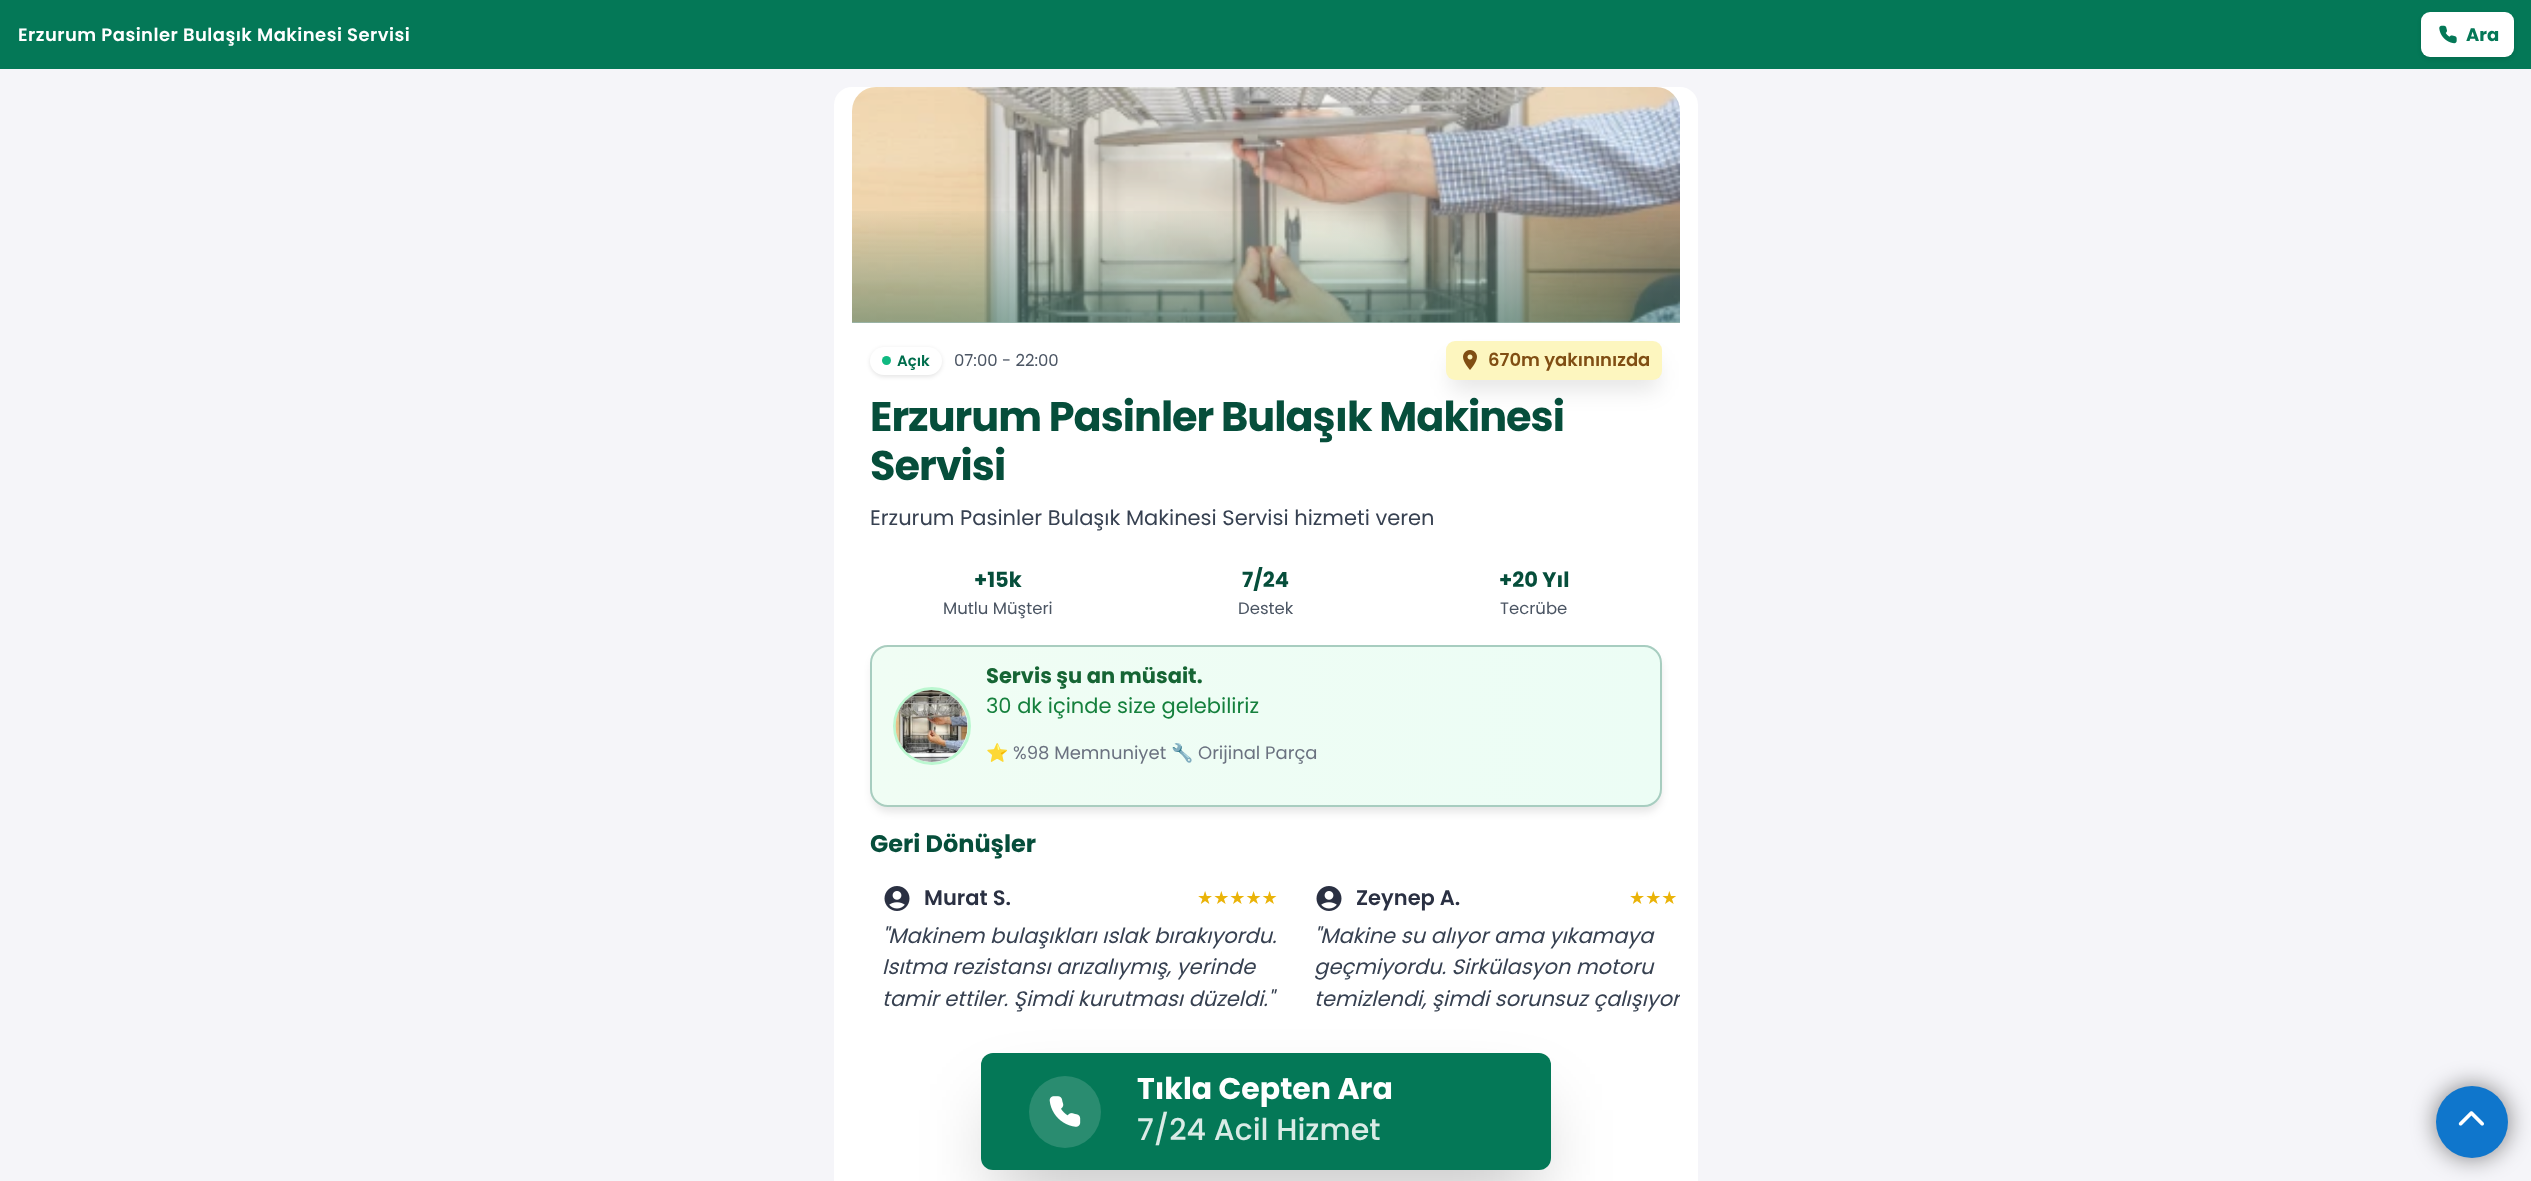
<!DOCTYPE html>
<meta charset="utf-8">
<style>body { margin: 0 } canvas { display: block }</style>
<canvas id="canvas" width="2531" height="1181"></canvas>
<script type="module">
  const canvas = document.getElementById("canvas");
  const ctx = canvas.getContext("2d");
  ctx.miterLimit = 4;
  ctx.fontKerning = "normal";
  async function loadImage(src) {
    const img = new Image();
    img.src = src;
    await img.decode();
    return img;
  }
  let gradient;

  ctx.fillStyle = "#f5f5f9";
  ctx.fillRect(0, 0, 2531, 1181);
  ctx.fillStyle = "#047857";
  ctx.fillRect(0, 0, 2531, 69);
  ctx.letterSpacing = "0.45px";
  ctx.font = "600 18px Poppins";
  ctx.fillStyle = "#ffffff";
  ctx.fillText("Erzurum Pasinler Bulaşık Makinesi Servisi", 18, 41);
  ctx.fillStyle = "rgba(0, 0, 0, 0.1)";
  ctx.filter = "blur(2px)";
  ctx.beginPath();
  ctx.roundRect(2421, 14, 93, 45, 9);
  ctx.fill();
  ctx.filter = "none";
  ctx.fillStyle = "#ffffff";
  ctx.beginPath();
  ctx.roundRect(2421, 12, 93, 45, 9);
  ctx.fill();
  ctx.drawImage(await loadImage("img1.png"), 2439, 25, 18, 19);
  ctx.letterSpacing = "0px";
  ctx.font = "bold 18px Poppins";
  ctx.fillStyle = "#047857";
  ctx.fillText("Ara", 2466, 41);
  ctx.fillStyle = "#ffffff";
  ctx.beginPath();
  ctx.roundRect(834, 87, 864, 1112, 18);
  ctx.fill();
  ctx.drawImage(await loadImage("img2.png"), 852, 87, 828, 236);
  gradient = ctx.createLinearGradient(1266, 323, 1266, 87);
  gradient.addColorStop(0, "rgba(6, 78, 59, 0.4)");
  gradient.addColorStop(0.5, "rgba(6, 78, 59, 0)");
  gradient.addColorStop(1, "rgba(0, 0, 0, 0)");
  ctx.fillStyle = gradient;
  ctx.fillRect(852, 211, 828, 112);
  ctx.fillStyle = "rgba(0, 0, 0, 0.1)";
  ctx.filter = "blur(2px)";
  ctx.beginPath();
  ctx.roundRect(870, 348, 72, 29, 14.5);
  ctx.fill();
  ctx.filter = "none";
  ctx.fillStyle = "#ffffff";
  ctx.beginPath();
  ctx.roundRect(870, 347, 72, 28, 14);
  ctx.fill();
  ctx.fillStyle = "#10b981";
  ctx.beginPath();
  ctx.arc(886.5, 360.5, 4.5, 0, Math.PI * 2);
  ctx.fill();
  ctx.font = "600 15px Poppins";
  ctx.fillStyle = "#006e4d";
  ctx.fillText("Açık", 897, 366);
  ctx.font = "16.5px Poppins";
  ctx.fillStyle = "#4b5563";
  ctx.fillText("07:00 - 22:00", 954, 366);
  ctx.fillStyle = "rgba(0, 0, 0, 0.1)";
  ctx.filter = "blur(11px)";
  ctx.beginPath();
  ctx.roundRect(1451, 360, 207, 30, 5);
  ctx.fill();
  ctx.filter = "none";
  ctx.fillStyle = "#fdf6bf";
  ctx.beginPath();
  ctx.roundRect(1446, 341, 216, 39, 9);
  ctx.fill();
  ctx.drawImage(await loadImage("img3.png"), 1463, 350, 14, 20);
  ctx.font = "600 18px Poppins";
  ctx.fillStyle = "#804e13";
  ctx.fillText("670m yakınınızda", 1488, 366);
  ctx.letterSpacing = "-1px";
  ctx.font = "bold 41.4px Poppins";
  ctx.fillStyle = "#064e3b";
  ctx.fillText("Erzurum Pasinler Bulaşık Makinesi", 870, 431);
  ctx.fillText("Servisi", 870, 480);
  ctx.letterSpacing = "0px";
  ctx.font = "21px Poppins";
  ctx.fillStyle = "#374151";
  ctx.fillText("Erzurum Pasinler Bulaşık Makinesi Servisi hizmeti veren", 870, 525);
  ctx.font = "bold 21px Poppins";
  ctx.fillStyle = "#064e3b";
  ctx.fillText("+15k", 974, 587);
  ctx.font = "16.5px Poppins";
  ctx.fillStyle = "#4b5563";
  ctx.fillText("Mutlu Müşteri", 943, 614);
  ctx.font = "bold 21px Poppins";
  ctx.fillStyle = "#064e3b";
  ctx.fillText("7/24", 1242, 587);
  ctx.font = "16.5px Poppins";
  ctx.fillStyle = "#4b5563";
  ctx.fillText("Destek", 1238, 614);
  ctx.font = "bold 21px Poppins";
  ctx.fillStyle = "#064e3b";
  ctx.fillText("+20 Yıl", 1499, 587);
  ctx.font = "16.5px Poppins";
  ctx.fillStyle = "#4b5563";
  ctx.fillText("Tecrübe", 1500, 614);
  ctx.fillStyle = "rgba(0, 0, 0, 0.1)";
  ctx.filter = "blur(4.5px)";
  ctx.beginPath();
  ctx.roundRect(872, 653, 789, 159, 17);
  ctx.fill();
  ctx.filter = "none";
  ctx.save();
  ctx.beginPath();
  ctx.roundRect(870, 645, 792, 162, 18);
  ctx.clip();
  gradient = ctx.createLinearGradient(83, 726, 872, 726);
  gradient.addColorStop(0, "#f0fdf4");
  gradient.addColorStop(1, "#ecfdf5");
  ctx.fillStyle = gradient;
  ctx.fillRect(870, 655, 2, 142);
  gradient = ctx.createLinearGradient(872, 726, 1661, 726);
  gradient.addColorStop(0, "#f0fdf4");
  gradient.addColorStop(1, "#ecfdf5");
  ctx.fillStyle = gradient;
  ctx.fillRect(872, 645, 789, 162);
  gradient = ctx.createLinearGradient(1661, 726, 2450, 726);
  gradient.addColorStop(0, "#f0fdf4");
  gradient.addColorStop(1, "#ecfdf5");
  ctx.fillStyle = gradient;
  ctx.fillRect(1661, 657, 1, 138);
  ctx.restore();
  ctx.beginPath();
  ctx.roundRect(871, 646, 790, 160, 17);
  ctx.strokeStyle = "rgba(6, 95, 70, 0.3)";
  ctx.lineWidth = 2;
  ctx.stroke();
  ctx.beginPath();
  ctx.arc(932, 726, 37.5, 0, Math.PI * 2);
  ctx.strokeStyle = "#bbf7d0";
  ctx.lineWidth = 3;
  ctx.stroke();
  ctx.drawImage(await loadImage("img4.png"), 895, 690, 73, 72);
  ctx.font = "bold 21px Poppins";
  ctx.fillStyle = "#166534";
  ctx.fillText("Servis şu an müsait.", 986, 683);
  ctx.font = "21px Poppins";
  ctx.fillStyle = "#15803d";
  ctx.fillText("30 dk içinde size gelebiliriz", 986, 713);
  ctx.font = "18px Noto Color Emoji";
  ctx.fillStyle = "#6b7280";
  ctx.fillText("⭐", 986, 759);
  ctx.font = "18px Poppins";
  ctx.fillText("%98 Memnuniyet", 1013, 759);
  ctx.font = "18px Noto Color Emoji";
  ctx.fillText("🔧", 1171, 759);
  ctx.font = "18px Poppins";
  ctx.fillText("Orijinal Parça", 1198, 759);
  ctx.font = "bold 24px Poppins";
  ctx.fillStyle = "#064e3b";
  ctx.fillText("Geri Dönüşler", 870, 852);
  ctx.drawImage(await loadImage("img5.png"), 884, 886, 26, 25);
  ctx.font = "600 21px Poppins";
  ctx.fillStyle = "#2a3042";
  ctx.fillText("Murat S.", 924, 905);
  ctx.font = "18px DejaVu Sans";
  ctx.fillStyle = "#eab308";
  ctx.fillText("★★★★★", 1197, 904);
  ctx.font = "italic 21px Poppins";
  ctx.fillStyle = "#374151";
  ctx.fillText("\"Makinem bulaşıkları ıslak bırakıyordu.", 882, 943);
  ctx.fillText("Isıtma rezistansı arızalıymış, yerinde", 882, 974);
  ctx.fillText("tamir ettiler. Şimdi kurutması düzeldi.\"", 882, 1006);
  ctx.drawImage(await loadImage("img5.png"), 1316, 886, 26, 25);
  ctx.font = "600 21px Poppins";
  ctx.fillStyle = "#2a3042";
  ctx.fillText("Zeynep A.", 1356, 905);
  ctx.font = "18px DejaVu Sans";
  ctx.fillStyle = "#eab308";
  ctx.fillText("★★★", 1629, 904);
  ctx.font = "italic 21px Poppins";
  ctx.fillStyle = "#374151";
  ctx.fillText("\"Makine su alıyor ama yıkamaya", 1314, 943);
  ctx.fillText("geçmiyordu. Sirkülasyon motoru", 1314, 974);
  ctx.save();
  ctx.beginPath();
  ctx.rect(852, 870, 828, 180);
  ctx.clip();
  ctx.fillText("temizlendi, şimdi sorunsuz çalışıyor", 1314, 1006);
  ctx.restore();
  ctx.fillStyle = "rgba(0, 0, 0, 0.25)";
  ctx.filter = "blur(37.5px)";
  ctx.beginPath();
  ctx.rect(999, 1109, 534, 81);
  ctx.fill();
  ctx.filter = "none";
  ctx.fillStyle = "#047857";
  ctx.beginPath();
  ctx.roundRect(981, 1053, 570, 117, 12);
  ctx.fill();
  ctx.fillStyle = "#2a8c70";
  ctx.beginPath();
  ctx.arc(1065, 1112, 36, 0, Math.PI * 2);
  ctx.fill();
  ctx.drawImage(await loadImage("img6.png"), 1049, 1096, 32, 31);
  ctx.font = "bold 30px Poppins";
  ctx.fillStyle = "#ffffff";
  ctx.fillText("Tıkla Cepten Ara", 1137, 1099);
  ctx.font = "500 30px Poppins";
  ctx.fillStyle = "#d9ebe6";
  ctx.fillText("7/24 Acil Hizmet", 1137, 1140);
  ctx.fillStyle = "rgba(0, 0, 0, 0.5)";
  ctx.filter = "blur(12px)";
  ctx.beginPath();
  ctx.roundRect(2436, 1086, 72, 72, 36);
  ctx.fill();
  ctx.filter = "none";
  ctx.fillStyle = "#0f76cc";
  ctx.beginPath();
  ctx.arc(2472, 1122, 36, 0, Math.PI * 2);
  ctx.fill();
  ctx.drawImage(await loadImage("img7.png"), 2458, 1111, 26, 15);
</script>
